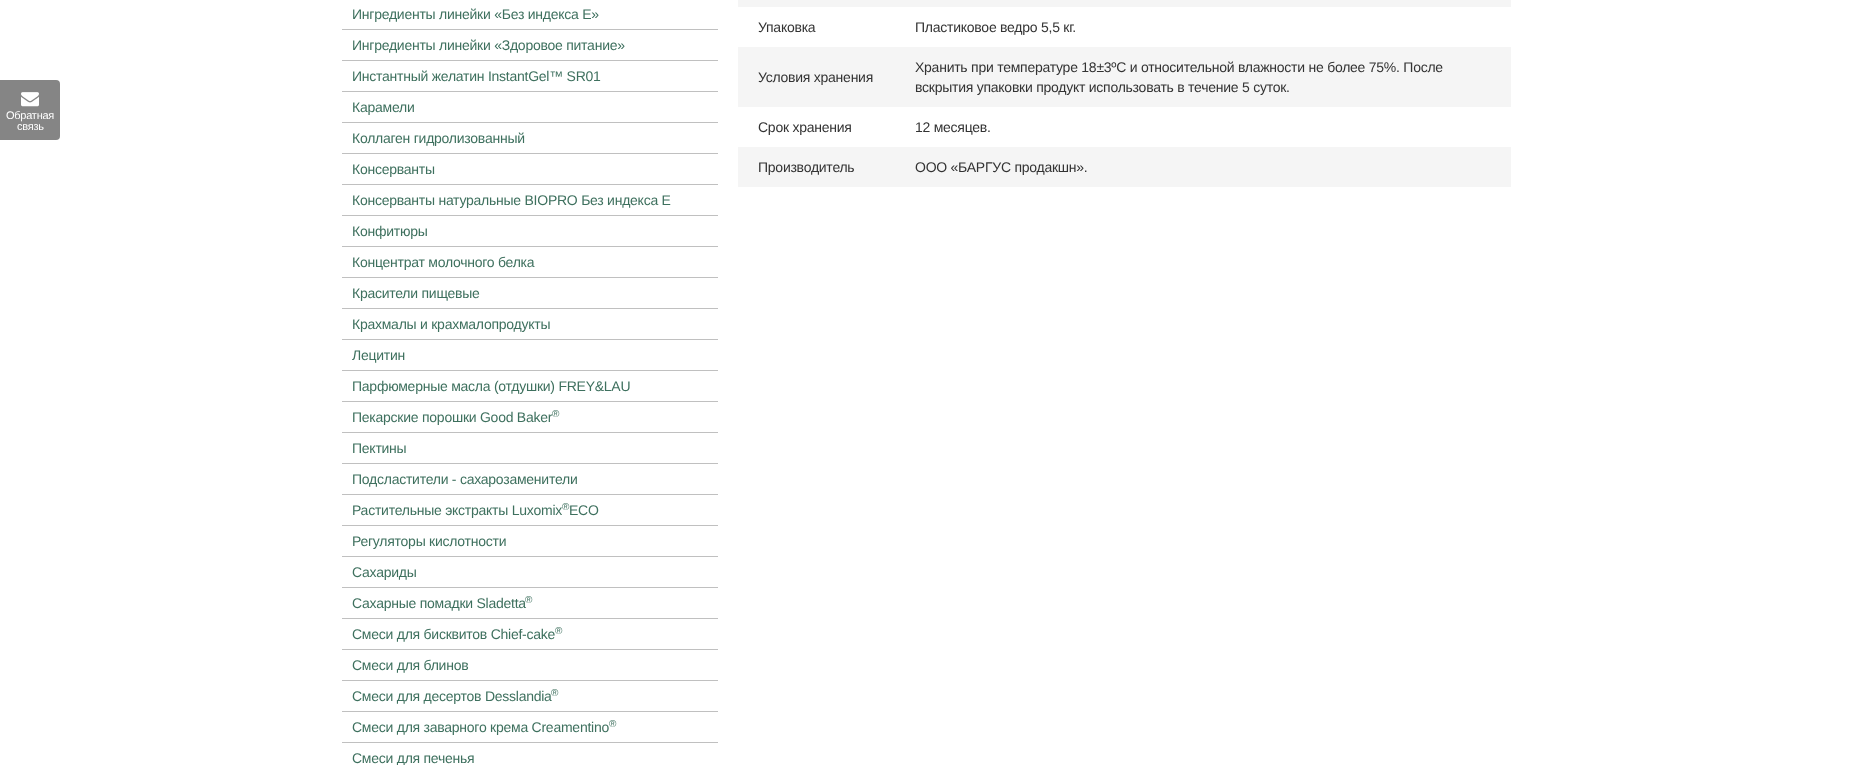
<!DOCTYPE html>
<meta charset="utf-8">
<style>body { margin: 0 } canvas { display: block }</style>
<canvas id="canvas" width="1853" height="765"></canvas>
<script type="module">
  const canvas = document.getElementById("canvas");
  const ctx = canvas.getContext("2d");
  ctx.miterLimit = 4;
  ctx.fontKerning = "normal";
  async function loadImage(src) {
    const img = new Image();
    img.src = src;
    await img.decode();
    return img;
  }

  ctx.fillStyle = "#ffffff";
  ctx.fillRect(0, 0, 1853, 765);
  ctx.fillStyle = "#858585";
  ctx.beginPath();
  ctx.roundRect(0, 80, 60, 60, [0, 4, 4, 0]);
  ctx.fill();
  ctx.drawImage(await loadImage("img1.png"), 21, 92, 18, 15);
  ctx.letterSpacing = "-0.25px";
  ctx.font = "11px Liberation Sans";
  ctx.fillStyle = "#ffffff";
  ctx.fillText("Обратная", 6, 119);
  ctx.fillText("связь", 17, 130);
  ctx.fillStyle = "#c0c0c0";
  ctx.fillRect(342, 29, 376, 1);
  ctx.font = "14px Liberation Sans";
  ctx.fillStyle = "#3e705e";
  ctx.fillText("Ингредиенты линейки «Без индекса E»", 352, 19);
  ctx.fillStyle = "#c0c0c0";
  ctx.fillRect(342, 60, 376, 1);
  ctx.fillStyle = "#3e705e";
  ctx.fillText("Ингредиенты линейки «Здоровое питание»", 352, 50);
  ctx.fillStyle = "#c0c0c0";
  ctx.fillRect(342, 91, 376, 1);
  ctx.fillStyle = "#3e705e";
  ctx.fillText("Инстантный желатин InstantGel™ SR01", 352, 81);
  ctx.fillStyle = "#c0c0c0";
  ctx.fillRect(342, 122, 376, 1);
  ctx.fillStyle = "#3e705e";
  ctx.fillText("Карамели", 352, 112);
  ctx.fillStyle = "#c0c0c0";
  ctx.fillRect(342, 153, 376, 1);
  ctx.fillStyle = "#3e705e";
  ctx.fillText("Коллаген гидролизованный", 352, 143);
  ctx.fillStyle = "#c0c0c0";
  ctx.fillRect(342, 184, 376, 1);
  ctx.fillStyle = "#3e705e";
  ctx.fillText("Консерванты", 352, 174);
  ctx.fillStyle = "#c0c0c0";
  ctx.fillRect(342, 215, 376, 1);
  ctx.fillStyle = "#3e705e";
  ctx.fillText("Консерванты натуральные BIOPRO Без индекса Е", 352, 205);
  ctx.fillStyle = "#c0c0c0";
  ctx.fillRect(342, 246, 376, 1);
  ctx.fillStyle = "#3e705e";
  ctx.fillText("Конфитюры", 352, 236);
  ctx.fillStyle = "#c0c0c0";
  ctx.fillRect(342, 277, 376, 1);
  ctx.fillStyle = "#3e705e";
  ctx.fillText("Концентрат молочного белка", 352, 267);
  ctx.fillStyle = "#c0c0c0";
  ctx.fillRect(342, 308, 376, 1);
  ctx.fillStyle = "#3e705e";
  ctx.fillText("Красители пищевые", 352, 298);
  ctx.fillStyle = "#c0c0c0";
  ctx.fillRect(342, 339, 376, 1);
  ctx.fillStyle = "#3e705e";
  ctx.fillText("Крахмалы и крахмалопродукты", 352, 329);
  ctx.fillStyle = "#c0c0c0";
  ctx.fillRect(342, 370, 376, 1);
  ctx.fillStyle = "#3e705e";
  ctx.fillText("Лецитин", 352, 360);
  ctx.fillStyle = "#c0c0c0";
  ctx.fillRect(342, 401, 376, 1);
  ctx.fillStyle = "#3e705e";
  ctx.fillText("Парфюмерные масла (отдушки) FREY&LAU", 352, 391);
  ctx.fillStyle = "#c0c0c0";
  ctx.fillRect(342, 432, 376, 1);
  ctx.fillStyle = "#3e705e";
  ctx.fillText("Пекарские порошки Good Baker", 352, 422);
  ctx.font = "10px Liberation Sans";
  ctx.fillText("®", 552, 417);
  ctx.fillStyle = "#c0c0c0";
  ctx.fillRect(342, 463, 376, 1);
  ctx.font = "14px Liberation Sans";
  ctx.fillStyle = "#3e705e";
  ctx.fillText("Пектины", 352, 453);
  ctx.fillStyle = "#c0c0c0";
  ctx.fillRect(342, 494, 376, 1);
  ctx.fillStyle = "#3e705e";
  ctx.fillText("Подсластители - сахарозаменители", 352, 484);
  ctx.fillStyle = "#c0c0c0";
  ctx.fillRect(342, 525, 376, 1);
  ctx.fillStyle = "#3e705e";
  ctx.fillText("Растительные экстракты Luxomix", 352, 515);
  ctx.font = "10px Liberation Sans";
  ctx.fillText("®", 562, 510);
  ctx.font = "14px Liberation Sans";
  ctx.fillText("ECO", 569, 515);
  ctx.fillStyle = "#c0c0c0";
  ctx.fillRect(342, 556, 376, 1);
  ctx.fillStyle = "#3e705e";
  ctx.fillText("Регуляторы кислотности", 352, 546);
  ctx.fillStyle = "#c0c0c0";
  ctx.fillRect(342, 587, 376, 1);
  ctx.fillStyle = "#3e705e";
  ctx.fillText("Сахариды", 352, 577);
  ctx.fillStyle = "#c0c0c0";
  ctx.fillRect(342, 618, 376, 1);
  ctx.fillStyle = "#3e705e";
  ctx.fillText("Сахарные помадки Sladetta", 352, 608);
  ctx.font = "10px Liberation Sans";
  ctx.fillText("®", 525, 603);
  ctx.fillStyle = "#c0c0c0";
  ctx.fillRect(342, 649, 376, 1);
  ctx.font = "14px Liberation Sans";
  ctx.fillStyle = "#3e705e";
  ctx.fillText("Смеси для бисквитов Chief-cake", 352, 639);
  ctx.font = "10px Liberation Sans";
  ctx.fillText("®", 555, 634);
  ctx.fillStyle = "#c0c0c0";
  ctx.fillRect(342, 680, 376, 1);
  ctx.font = "14px Liberation Sans";
  ctx.fillStyle = "#3e705e";
  ctx.fillText("Смеси для блинов", 352, 670);
  ctx.fillStyle = "#c0c0c0";
  ctx.fillRect(342, 711, 376, 1);
  ctx.fillStyle = "#3e705e";
  ctx.fillText("Смеси для десертов Desslandia", 352, 701);
  ctx.font = "10px Liberation Sans";
  ctx.fillText("®", 551, 696);
  ctx.fillStyle = "#c0c0c0";
  ctx.fillRect(342, 742, 376, 1);
  ctx.font = "14px Liberation Sans";
  ctx.fillStyle = "#3e705e";
  ctx.fillText("Смеси для заварного крема Creamentino", 352, 732);
  ctx.font = "10px Liberation Sans";
  ctx.fillText("®", 609, 727);
  ctx.font = "14px Liberation Sans";
  ctx.fillText("Смеси для печенья", 352, 763);
  ctx.fillStyle = "#f5f5f5";
  ctx.fillRect(738, 0, 773, 7);
  ctx.fillStyle = "#333333";
  ctx.fillText("Упаковка", 758, 32);
  ctx.fillText("Пластиковое ведро 5,5 кг.", 915, 32);
  ctx.fillStyle = "#f5f5f5";
  ctx.fillRect(738, 47, 773, 60);
  ctx.fillStyle = "#333333";
  ctx.fillText("Условия хранения", 758, 82);
  ctx.fillText("Хранить при температуре 18±3ºС и относительной влажности не более 75%. После", 915, 72);
  ctx.fillText("вскрытия упаковки продукт использовать в течение 5 суток.", 915, 92);
  ctx.fillText("Срок хранения", 758, 132);
  ctx.fillText("12 месяцев.", 915, 132);
  ctx.fillStyle = "#f5f5f5";
  ctx.fillRect(738, 147, 773, 40);
  ctx.fillStyle = "#333333";
  ctx.fillText("Производитель", 758, 172);
  ctx.fillText("ООО «БАРГУС продакшн».", 915, 172);
</script>
